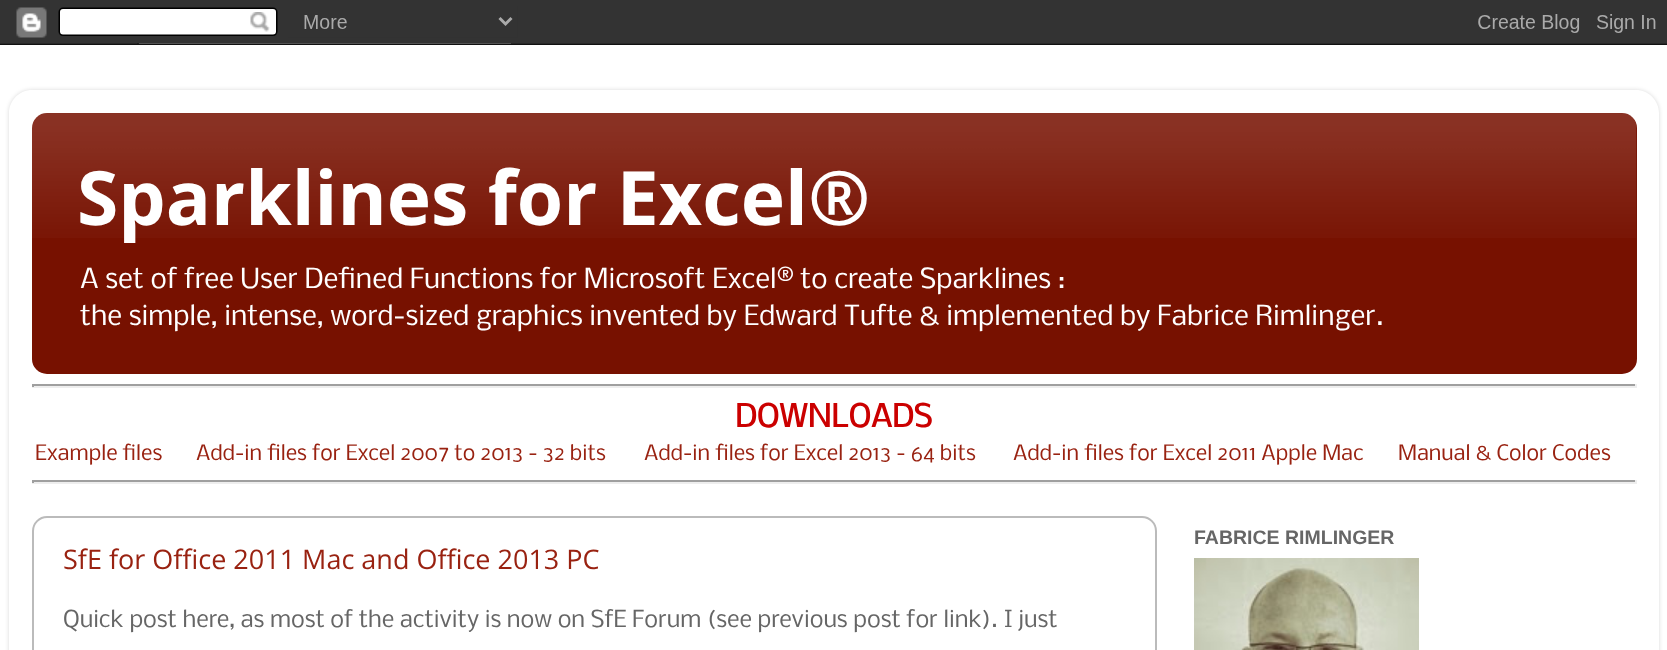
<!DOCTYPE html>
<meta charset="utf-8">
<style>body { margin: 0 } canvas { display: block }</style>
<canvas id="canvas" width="1667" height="650"></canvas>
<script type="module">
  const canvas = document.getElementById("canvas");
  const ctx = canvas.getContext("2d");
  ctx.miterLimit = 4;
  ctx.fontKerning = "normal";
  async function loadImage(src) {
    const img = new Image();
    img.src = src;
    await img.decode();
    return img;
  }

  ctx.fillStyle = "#ffffff";
  ctx.fillRect(0, 0, 1667, 650);
  ctx.drawImage(await loadImage("img1.png"), 0, 0, 1667, 45);
  ctx.save();
  ctx.beginPath();
  ctx.moveTo(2, 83);
  ctx.lineTo(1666, 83);
  ctx.lineTo(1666, 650);
  ctx.lineTo(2, 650);
  ctx.closePath();
  ctx.moveTo(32, 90);
  ctx.lineTo(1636, 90);
  ctx.bezierCurveTo(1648.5, 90, 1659, 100.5, 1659, 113);
  ctx.lineTo(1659, 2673);
  ctx.bezierCurveTo(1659, 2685.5, 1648.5, 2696, 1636, 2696);
  ctx.lineTo(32, 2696);
  ctx.bezierCurveTo(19.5, 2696, 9, 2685.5, 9, 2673);
  ctx.lineTo(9, 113);
  ctx.bezierCurveTo(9, 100.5, 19.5, 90, 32, 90);
  ctx.closePath();
  ctx.clip("evenodd");
  ctx.fillStyle = "rgba(0, 0, 0, 0.15)";
  ctx.filter = "blur(2px)";
  ctx.beginPath();
  ctx.roundRect(9, 90, 1650, 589, 23);
  ctx.fill();
  ctx.filter = "none";
  ctx.restore();
  ctx.fillStyle = "#771100";
  ctx.beginPath();
  ctx.roundRect(32, 113, 1605, 261, 15);
  ctx.fill();
  ctx.drawImage(await loadImage("img2.png"), 32, 113, 1605, 125);
  ctx.font = "bold 75px Open Sans";
  ctx.fillStyle = "#ffffff";
  ctx.fillText("Sparklines for Excel®", 77, 225);
  ctx.font = "26.35px Nobile";
  ctx.fillText("A set of free User Defined Functions for Microsoft Excel® to create Sparklines :", 80, 288);
  ctx.fillText("the simple, intense, word-sized graphics invented by Edward Tufte & implemented by Fabrice Rimlinger.", 80, 325);
  ctx.fillStyle = "#9f9f9f";
  ctx.fillRect(32, 384, 1605, 2);
  ctx.fillStyle = "#eeeeee";
  ctx.fillRect(1635, 384, 2, 3);
  ctx.fillRect(32, 386, 1605, 2);
  ctx.fillStyle = "#9f9f9f";
  ctx.fillRect(32, 384, 2, 3);
  ctx.font = "bold 30px Nobile";
  ctx.fillStyle = "#cb0000";
  ctx.fillText("DOWNLOADS", 735, 427);
  ctx.font = "20.25px Nobile";
  ctx.fillStyle = "#992211";
  ctx.fillText("Example files", 35, 460);
  ctx.fillText("Add-in files for Excel 2007 to 2013 - 32 bits", 196, 460);
  ctx.fillText("Add-in files for Excel 2013 - 64 bits", 644, 460);
  ctx.fillText("Add-in files for Excel 2011 Apple Mac", 1013, 460);
  ctx.fillText("Manual & Color Codes", 1398, 460);
  ctx.fillStyle = "#9f9f9f";
  ctx.fillRect(32, 480, 1605, 2);
  ctx.fillStyle = "#eeeeee";
  ctx.fillRect(1635, 480, 2, 3);
  ctx.fillRect(32, 482, 1605, 2);
  ctx.fillStyle = "#9f9f9f";
  ctx.fillRect(32, 480, 2, 3);
  ctx.font = "bold 19.5px Liberation Sans";
  ctx.fillStyle = "#666666";
  ctx.fillText("FABRICE RIMLINGER", 1194, 544);
  ctx.drawImage(await loadImage("img3.png"), 1194, 558, 225, 92);
  ctx.beginPath();
  ctx.roundRect(33, 517, 1123, 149, 14);
  ctx.strokeStyle = "#bbbbbb";
  ctx.lineWidth = 2;
  ctx.stroke();
  ctx.font = "27px Open Sans";
  ctx.fillStyle = "#992211";
  ctx.fillText("SfE for Office 2011 Mac and Office 2013 PC", 63, 569);
  ctx.font = "22.25px Nobile";
  ctx.fillStyle = "#666666";
  ctx.fillText("Quick post here, as most of the activity is now on SfE Forum (see previous post for link).", 63, 627);
  ctx.fillText("I just", 1004, 627);
</script>
